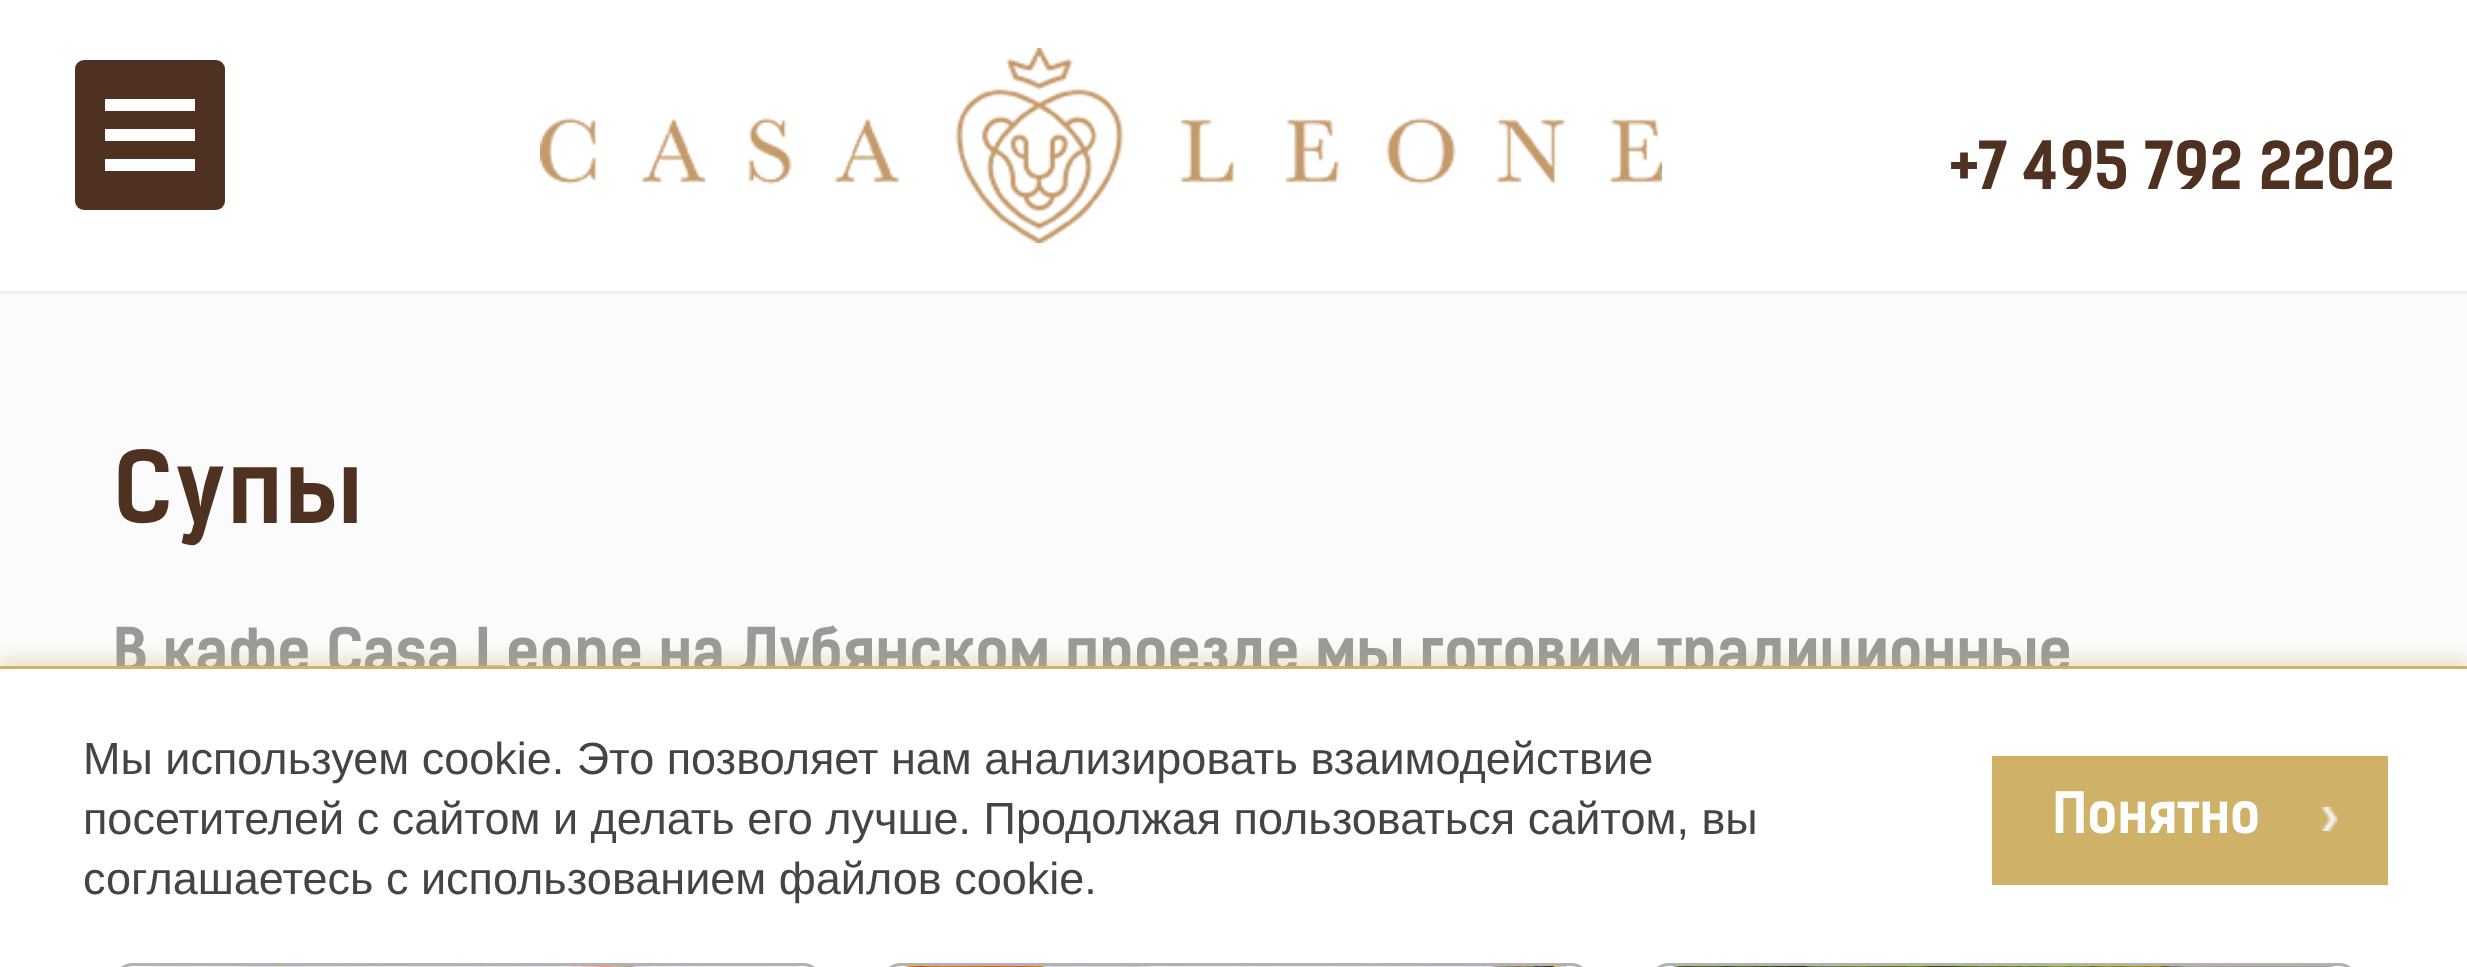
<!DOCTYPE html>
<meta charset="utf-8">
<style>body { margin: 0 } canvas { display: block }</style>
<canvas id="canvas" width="2467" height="967"></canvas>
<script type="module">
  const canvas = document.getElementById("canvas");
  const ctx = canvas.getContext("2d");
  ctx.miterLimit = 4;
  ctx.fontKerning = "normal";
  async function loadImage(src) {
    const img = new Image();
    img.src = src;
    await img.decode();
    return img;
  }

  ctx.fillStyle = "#ffffff";
  ctx.fillRect(0, 0, 2467, 967);
  ctx.fillStyle = "#4f3122";
  ctx.beginPath();
  ctx.roundRect(75, 60, 150, 150, 9);
  ctx.fill();
  ctx.fillStyle = "#ffffff";
  ctx.fillRect(105, 99, 90, 12);
  ctx.fillRect(105, 129, 90, 12);
  ctx.fillRect(105, 159, 90, 12);
  ctx.drawImage(await loadImage("img1.png"), 540, 48, 1122, 195);
  ctx.font = "bold 63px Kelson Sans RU";
  ctx.fillStyle = "#4f3122";
  ctx.fillText("+7 495 792 2202", 1949, 189);
  ctx.fillStyle = "#fbfbfb";
  ctx.fillRect(0, 294, 2467, 372);
  ctx.fillStyle = "#eeeeee";
  ctx.fillRect(0, 291, 2467, 3);
  ctx.letterSpacing = "3px";
  ctx.font = "bold 96px Kelson Sans RU";
  ctx.fillStyle = "#4f3122";
  ctx.fillText("Супы", 113, 523);
  ctx.letterSpacing = "0px";
  ctx.font = "bold 60px Kelson Sans RU";
  ctx.fillStyle = "#999999";
  ctx.fillText("В кафе Casa Leone на Лубянском проезде мы готовим традиционные", 113, 673);
  ctx.fillStyle = "rgba(207, 177, 104, 0.3)";
  ctx.filter = "blur(7.5px)";
  ctx.beginPath();
  ctx.rect(0, 657, 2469, 303);
  ctx.fill();
  ctx.filter = "none";
  ctx.fillStyle = "#ffffff";
  ctx.fillRect(0, 669, 2467, 298);
  ctx.beginPath();
  ctx.roundRect(115.5, 964.5, 705, 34, 28.5);
  ctx.strokeStyle = "#b2b2b2";
  ctx.lineWidth = 3;
  ctx.stroke();
  ctx.drawImage(await loadImage("img2.png"), 137, 966, 662, 1);
  ctx.beginPath();
  ctx.roundRect(883.5, 964.5, 705, 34, 28.5);
  ctx.stroke();
  ctx.drawImage(await loadImage("img3.png"), 905, 966, 661, 1);
  ctx.beginPath();
  ctx.roundRect(1651.5, 964.5, 705, 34, 28.5);
  ctx.stroke();
  ctx.drawImage(await loadImage("img4.png"), 1673, 966, 662, 1);
  ctx.fillStyle = "#cfb168";
  ctx.fillRect(0, 666, 2467, 3);
  ctx.font = "45px Liberation Sans";
  ctx.fillStyle = "#444444";
  ctx.fillText("Мы используем cookie. Это позволяет нам анализировать взаимодействие", 83, 774);
  ctx.fillText("посетителей с сайтом и делать его лучше. Продолжая пользоваться сайтом, вы", 83, 834);
  ctx.fillText("соглашаетесь с использованием файлов cookie.", 83, 894);
  ctx.fillStyle = "#cfb168";
  ctx.fillRect(1992, 756, 396, 129);
  ctx.font = "bold 54px Kelson Sans RU";
  ctx.fillStyle = "#ffffff";
  ctx.fillText("Понятно", 2052, 833);
  ctx.drawImage(await loadImage("img5.png"), 2321, 807, 16, 24);
</script>
